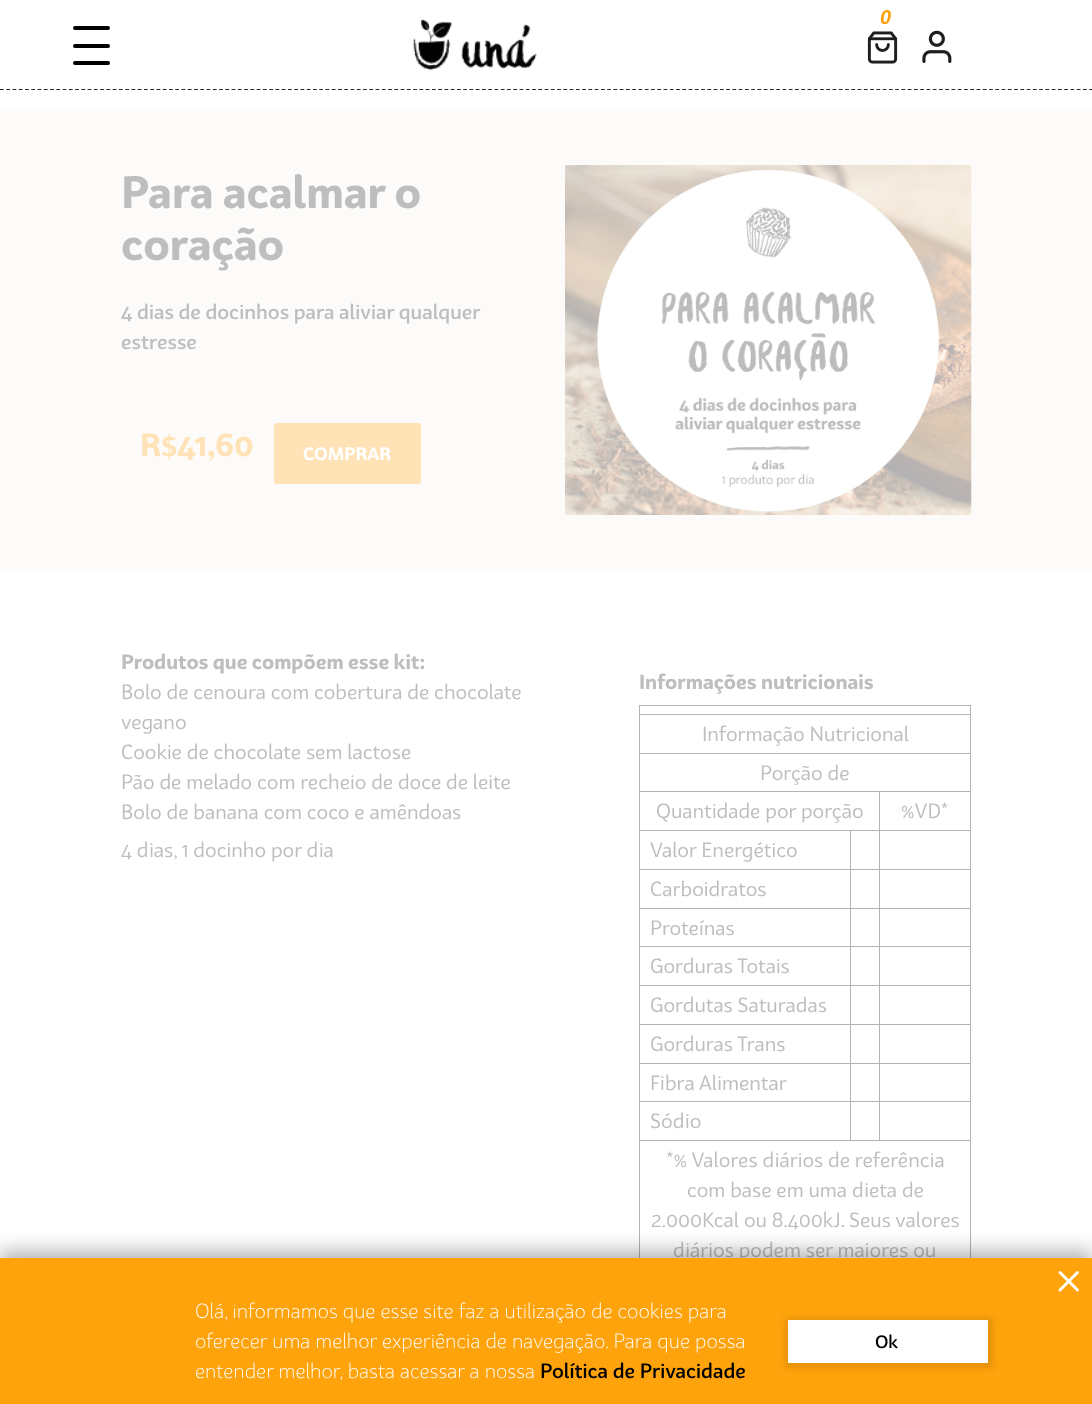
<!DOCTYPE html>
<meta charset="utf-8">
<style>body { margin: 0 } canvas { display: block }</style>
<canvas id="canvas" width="1092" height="1404"></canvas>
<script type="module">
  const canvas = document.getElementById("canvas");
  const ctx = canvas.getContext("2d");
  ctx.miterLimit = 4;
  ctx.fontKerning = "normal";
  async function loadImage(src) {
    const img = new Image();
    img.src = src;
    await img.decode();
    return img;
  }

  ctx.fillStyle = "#ffffff";
  ctx.fillRect(0, 0, 1092, 1404);
  ctx.beginPath();
  ctx.moveTo(0, 89.5);
  ctx.lineTo(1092.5, 89.5);
  ctx.strokeStyle = "#212529";
  ctx.lineWidth = 1.2;
  ctx.setLineDash([3.75, 2.51]);
  ctx.stroke();
  ctx.font = "italic bold 20px Liberation Sans";
  ctx.fillStyle = "#fea30b";
  ctx.fillText("0", 880, 24);
  ctx.drawImage(await loadImage("img1.png"), 867, 31, 31, 33);
  ctx.drawImage(await loadImage("img2.png"), 922, 30, 30, 33);
  ctx.fillStyle = "#000000";
  ctx.beginPath();
  ctx.roundRect(73, 26, 37, 4, 2);
  ctx.fill();
  ctx.beginPath();
  ctx.roundRect(73, 44, 37, 4, 2);
  ctx.fill();
  ctx.beginPath();
  ctx.roundRect(73, 61, 37, 4, 2);
  ctx.fill();
  ctx.drawImage(await loadImage("img3.png"), 413, 19, 124, 52);
  ctx.fillStyle = "#fdfbf9";
  ctx.fillRect(0, 109, 1092, 462);
  ctx.font = "bold 43.75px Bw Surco";
  ctx.fillStyle = "#bcbebf";
  ctx.fillText("Para acalmar o", 121, 208);
  ctx.fillText("coração", 121, 260);
  ctx.font = "500 20px Bw Surco";
  ctx.fillText("4 dias de docinhos para aliviar qualquer", 121, 319);
  ctx.fillText("estresse", 121, 349);
  ctx.font = "bold 31px Bw Surco";
  ctx.fillStyle = "#ffe3b6";
  ctx.fillText("R$41,60", 140, 456);
  ctx.beginPath();
  ctx.roundRect(274, 423, 147, 61, 2.5);
  ctx.fill();
  ctx.font = "bold 17.5px Bw Surco";
  ctx.fillStyle = "#ffffff";
  ctx.fillText("COMPRAR", 303, 460);
  ctx.drawImage(await loadImage("img4.png"), 565, 165, 407, 350);
  ctx.font = "bold 20px Bw Surco";
  ctx.fillStyle = "#bcbebf";
  ctx.fillText("Produtos que compõem esse kit:", 121, 669);
  ctx.font = "20px Bw Surco";
  ctx.fillText("Bolo de cenoura com cobertura de chocolate", 121, 699);
  ctx.fillText("vegano", 121, 729);
  ctx.fillText("Cookie de chocolate sem lactose", 121, 759);
  ctx.fillText("Pão de melado com recheio de doce de leite", 121, 789);
  ctx.fillText("Bolo de banana com coco e amêndoas", 121, 819);
  ctx.fillText("4 dias, 1 docinho por dia", 121, 857);
  ctx.font = "bold 20px Bw Surco";
  ctx.fillText("Informações nutricionais", 639, 689);
  ctx.fillStyle = "#b3b3b3";
  ctx.fillRect(639, 705, 332, 1);
  ctx.fillRect(970, 705, 1, 553);
  ctx.fillRect(639, 705, 1, 553);
  ctx.fillRect(639, 714, 332, 1);
  ctx.font = "20px Bw Surco";
  ctx.fillStyle = "#bcbebf";
  ctx.fillText("Informação Nutricional", 702, 741);
  ctx.fillStyle = "#b3b3b3";
  ctx.fillRect(639, 753, 332, 1);
  ctx.fillStyle = "#bcbebf";
  ctx.fillText("Porção de", 760, 780);
  ctx.fillStyle = "#b3b3b3";
  ctx.fillRect(879, 791, 92, 1);
  ctx.fillRect(879, 830, 92, 1);
  ctx.fillRect(879, 869, 92, 1);
  ctx.fillRect(879, 908, 92, 1);
  ctx.fillRect(879, 946, 92, 1);
  ctx.fillRect(879, 985, 92, 1);
  ctx.fillRect(879, 1024, 92, 1);
  ctx.fillRect(879, 1063, 92, 1);
  ctx.fillRect(879, 1101, 92, 1);
  ctx.fillRect(639, 1140, 332, 1);
  ctx.fillRect(879, 1101, 1, 40);
  ctx.fillRect(850, 1101, 30, 1);
  ctx.fillRect(879, 1063, 1, 40);
  ctx.fillRect(850, 1063, 30, 1);
  ctx.fillRect(879, 1024, 1, 40);
  ctx.fillRect(850, 1024, 30, 1);
  ctx.fillRect(879, 985, 1, 40);
  ctx.fillRect(850, 985, 30, 1);
  ctx.fillRect(879, 946, 1, 40);
  ctx.fillRect(850, 946, 30, 1);
  ctx.fillRect(879, 908, 1, 40);
  ctx.fillRect(850, 908, 30, 1);
  ctx.fillRect(879, 869, 1, 40);
  ctx.fillRect(850, 869, 30, 1);
  ctx.fillRect(879, 830, 1, 40);
  ctx.fillRect(850, 830, 30, 1);
  ctx.fillRect(879, 791, 1, 40);
  ctx.fillRect(639, 791, 241, 1);
  ctx.fillStyle = "#bcbebf";
  ctx.fillText("Quantidade por porção", 656, 818);
  ctx.fillText("%VD*", 901, 818);
  ctx.fillStyle = "#b3b3b3";
  ctx.fillRect(850, 1101, 1, 40);
  ctx.fillRect(639, 1101, 212, 1);
  ctx.fillRect(850, 1063, 1, 40);
  ctx.fillRect(639, 1063, 212, 1);
  ctx.fillRect(850, 1024, 1, 40);
  ctx.fillRect(639, 1024, 212, 1);
  ctx.fillRect(850, 985, 1, 40);
  ctx.fillRect(639, 985, 212, 1);
  ctx.fillRect(850, 946, 1, 40);
  ctx.fillRect(639, 946, 212, 1);
  ctx.fillRect(850, 908, 1, 40);
  ctx.fillRect(639, 908, 212, 1);
  ctx.fillRect(850, 869, 1, 40);
  ctx.fillRect(639, 869, 212, 1);
  ctx.fillRect(850, 830, 1, 40);
  ctx.fillRect(639, 830, 212, 1);
  ctx.fillStyle = "#bcbebf";
  ctx.fillText("Valor Energético", 650, 857);
  ctx.fillText("Carboidratos", 650, 896);
  ctx.fillText("Proteínas", 650, 935);
  ctx.fillText("Gorduras Totais", 650, 973);
  ctx.fillText("Gordutas Saturadas", 650, 1012);
  ctx.fillText("Gorduras Trans", 650, 1051);
  ctx.fillText("Fibra Alimentar", 650, 1090);
  ctx.fillText("Sódio", 650, 1128);
  ctx.fillText("*% Valores diários de referência", 666, 1167);
  ctx.fillText("com base em uma dieta de", 687, 1197);
  ctx.fillText("2.000Kcal ou 8.400kJ. Seus valores", 651, 1227);
  ctx.fillText("diários podem ser maiores ou", 673, 1257);
  ctx.fillStyle = "rgba(0, 0, 0, 0.3)";
  ctx.filter = "blur(9.5px)";
  ctx.beginPath();
  ctx.rect(0, 1251, 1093, 148);
  ctx.fill();
  ctx.filter = "none";
  ctx.fillStyle = "#fea30b";
  ctx.fillRect(0, 1258, 1092, 146);
  ctx.beginPath();
  ctx.moveTo(1077.5, 1272.5);
  ctx.lineTo(1060, 1290);
  ctx.moveTo(1060, 1272.5);
  ctx.lineTo(1077.5, 1290);
  ctx.strokeStyle = "#ffffff";
  ctx.lineWidth = 2.9;
  ctx.lineCap = "round";
  ctx.lineJoin = "round";
  ctx.setLineDash([]);
  ctx.stroke();
  ctx.font = "300 20px Bw Surco";
  ctx.fillStyle = "#ffffff";
  ctx.fillText("Olá, informamos que esse site faz a utilização de cookies para", 195, 1318);
  ctx.fillText("oferecer uma melhor experiência de navegação. Para que possa", 195, 1348);
  ctx.fillText("entender melhor, basta acessar a nossa", 195, 1378);
  ctx.font = "500 20px Bw Surco";
  ctx.fillStyle = "#000000";
  ctx.fillText("Política de Privacidade", 540, 1378);
  ctx.fillStyle = "rgba(0, 0, 0, 0.1)";
  ctx.filter = "blur(3px)";
  ctx.beginPath();
  ctx.rect(785, 1318, 208, 50);
  ctx.fill();
  ctx.filter = "none";
  ctx.fillStyle = "#ffffff";
  ctx.fillRect(788, 1320, 200, 43);
  ctx.font = "500 17.5px Bw Surco";
  ctx.fillStyle = "#000000";
  ctx.fillText("Ok", 875, 1348);
</script>
